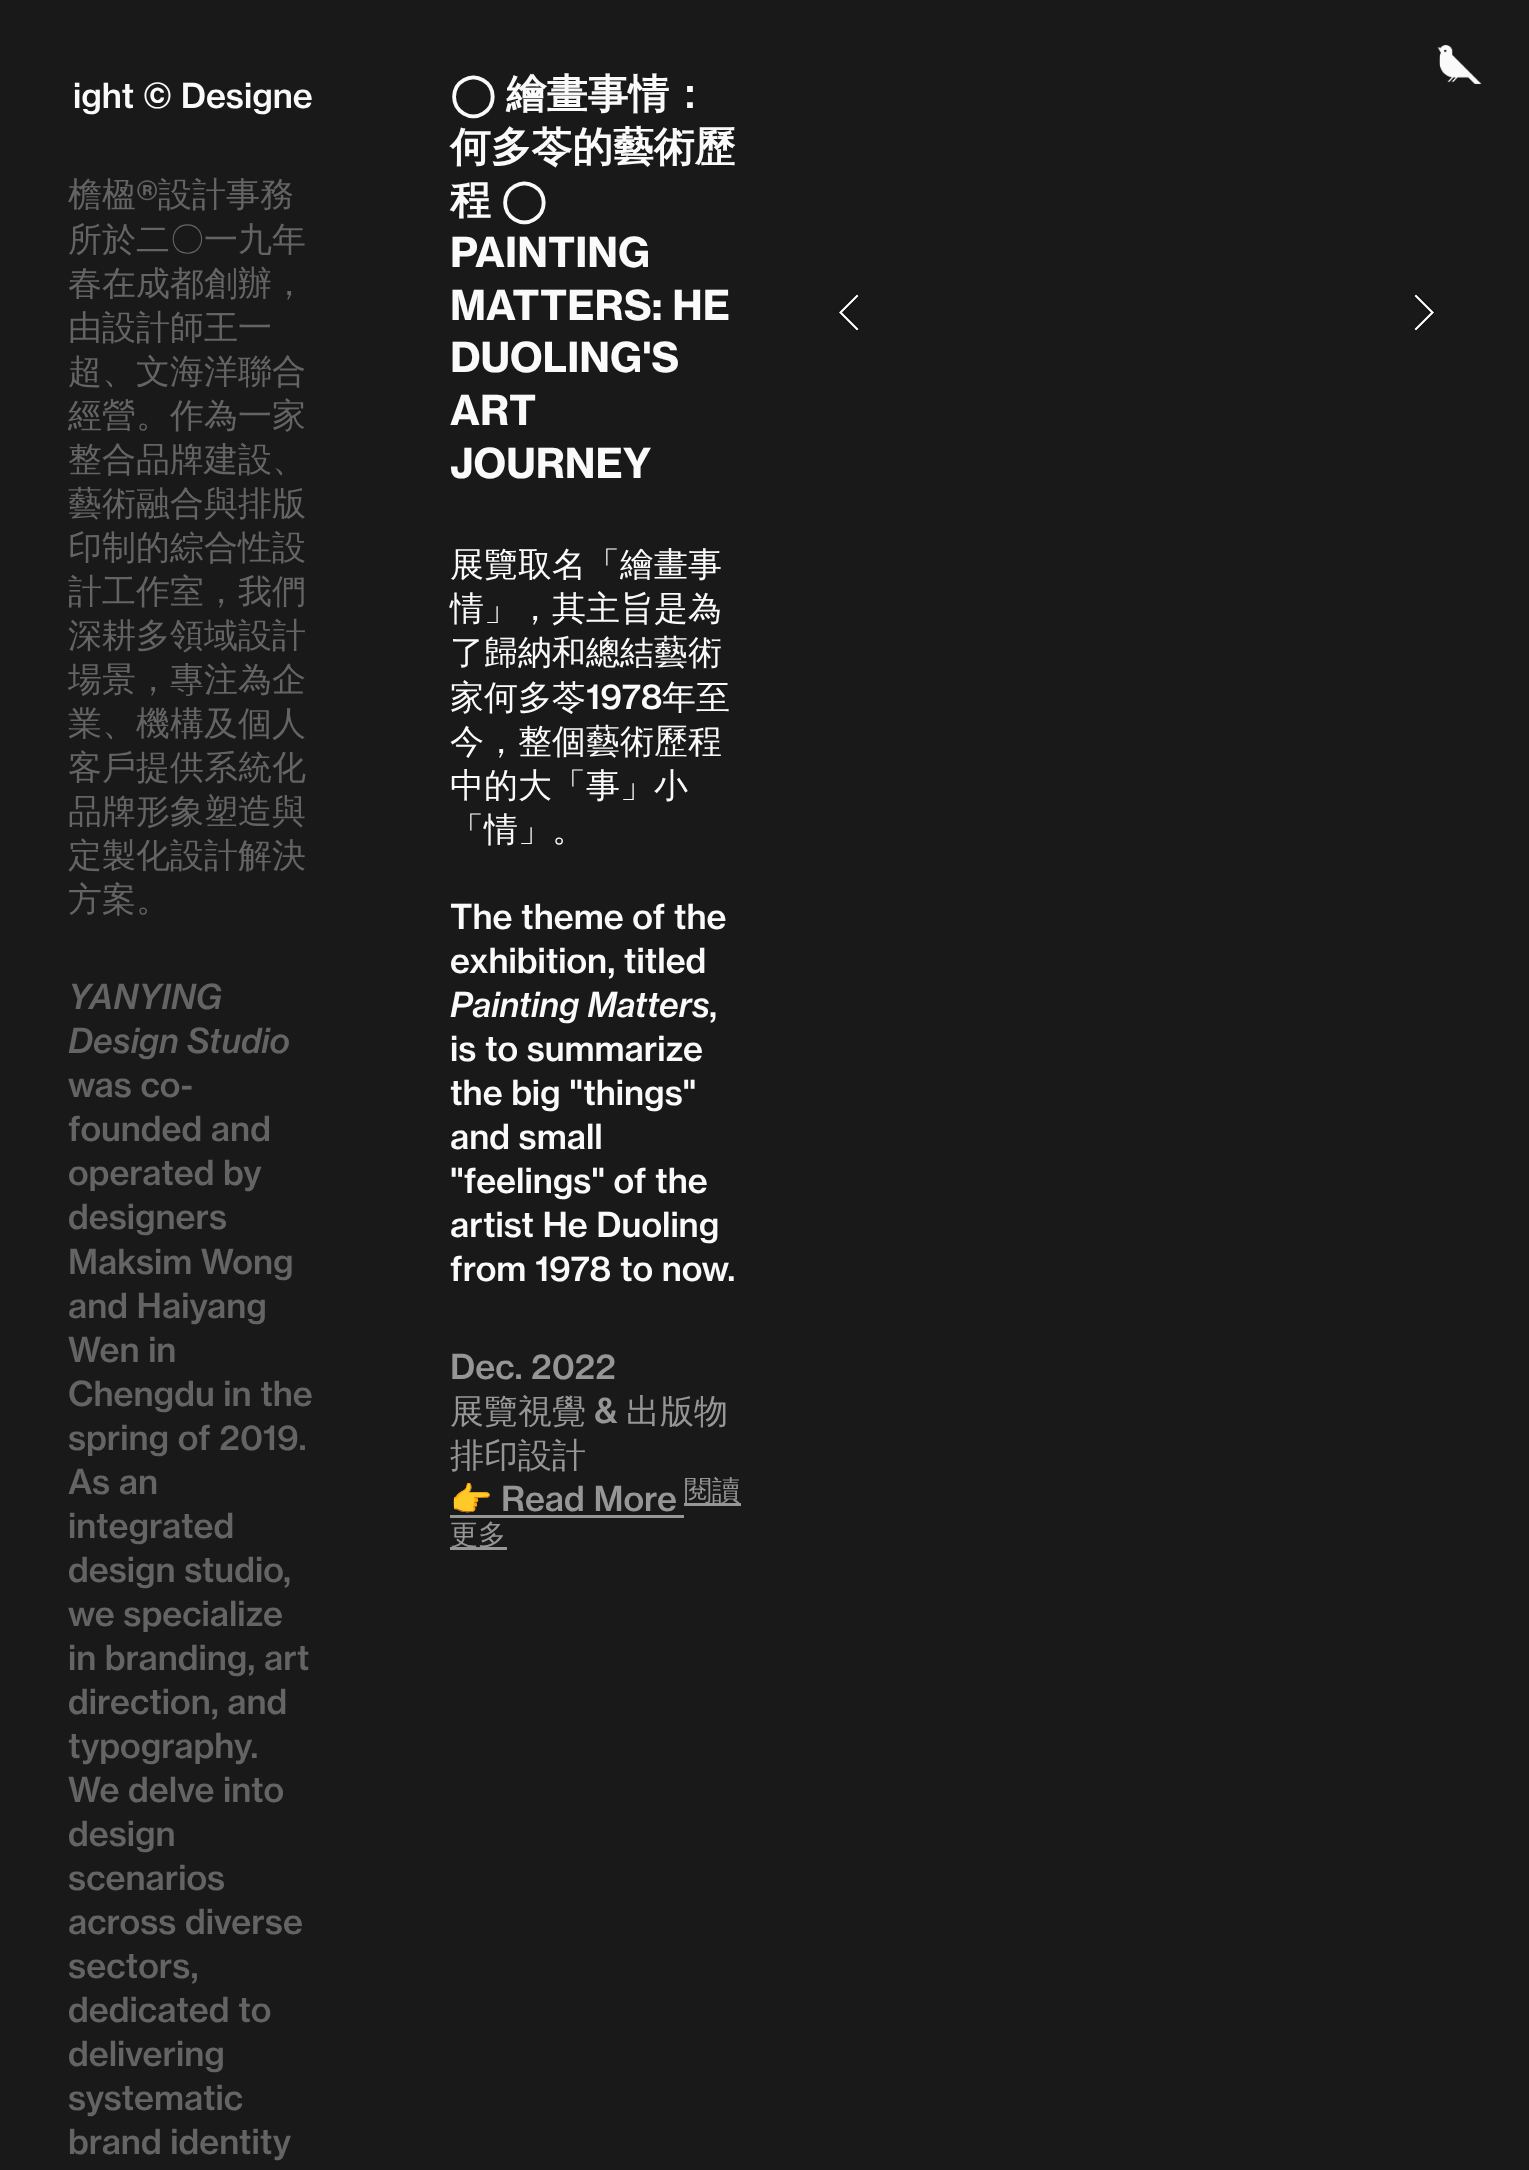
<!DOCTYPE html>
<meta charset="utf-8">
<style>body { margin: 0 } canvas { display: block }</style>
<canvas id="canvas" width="1529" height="2170"></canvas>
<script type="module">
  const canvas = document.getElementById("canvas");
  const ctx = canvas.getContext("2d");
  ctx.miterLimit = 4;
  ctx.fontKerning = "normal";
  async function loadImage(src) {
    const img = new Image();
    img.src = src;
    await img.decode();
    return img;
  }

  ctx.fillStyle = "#191919";
  ctx.fillRect(0, 0, 1529, 2170);
  ctx.drawImage(await loadImage("img1.png"), 1437, 44, 45, 41);
  ctx.font = "500 34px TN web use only";
  ctx.fillStyle = "#fafafa";
  ctx.fillText("ight © Designe", 73, 108);
  ctx.font = "500 34px WenQuanYi Zen Hei";
  ctx.fillStyle = "#646464";
  ctx.fillText("檐楹", 68, 206);
  ctx.font = "500 34px TN web use only";
  ctx.fillText("®", 136, 206);
  ctx.font = "500 34px WenQuanYi Zen Hei";
  ctx.fillText("設計事務", 158, 206);
  ctx.fillText("所於二〇一九年", 68, 251);
  ctx.fillText("春在成都創辦，", 68, 295);
  ctx.fillText("由設計師王一", 68, 339);
  ctx.fillText("超、文海洋聯合", 68, 383);
  ctx.fillText("經營。作為一家", 68, 427);
  ctx.fillText("整合品牌建設、", 68, 471);
  ctx.fillText("藝術融合與排版", 68, 515);
  ctx.fillText("印制的綜合性設", 68, 559);
  ctx.fillText("計工作室，我們", 68, 603);
  ctx.fillText("深耕多領域設計", 68, 647);
  ctx.fillText("場景，專注為企", 68, 691);
  ctx.fillText("業、機構及個人", 68, 735);
  ctx.fillText("客戶提供系統化", 68, 779);
  ctx.fillText("品牌形象塑造與", 68, 823);
  ctx.fillText("定製化設計解決", 68, 867);
  ctx.fillText("方案。", 68, 911);
  ctx.font = "italic 500 34px TN web use only";
  ctx.fillText("YANYING", 68, 1009);
  ctx.fillText("Design Studio", 68, 1053);
  ctx.font = "500 34px TN web use only";
  ctx.fillText("was co-", 68, 1097);
  ctx.fillText("founded and", 68, 1141);
  ctx.fillText("operated by", 68, 1185);
  ctx.fillText("designers", 68, 1229);
  ctx.fillText("Maksim Wong", 68, 1274);
  ctx.fillText("and Haiyang", 68, 1318);
  ctx.fillText("Wen in", 68, 1362);
  ctx.fillText("Chengdu in the", 68, 1406);
  ctx.fillText("spring of 2019.", 68, 1450);
  ctx.fillText("As an", 68, 1494);
  ctx.fillText("integrated", 68, 1538);
  ctx.fillText("design studio,", 68, 1582);
  ctx.fillText("we specialize", 68, 1626);
  ctx.fillText("in branding, art", 68, 1670);
  ctx.fillText("direction, and", 68, 1714);
  ctx.fillText("typography.", 68, 1758);
  ctx.fillText("We delve into", 68, 1802);
  ctx.fillText("design", 68, 1846);
  ctx.fillText("scenarios", 68, 1890);
  ctx.fillText("across diverse", 68, 1934);
  ctx.fillText("sectors,", 68, 1978);
  ctx.fillText("dedicated to", 68, 2022);
  ctx.fillText("delivering", 68, 2066);
  ctx.fillText("systematic", 68, 2110);
  ctx.fillText("brand identity", 68, 2154);
  ctx.font = "bold 40.75px DejaVu Sans";
  ctx.fillStyle = "#fafafa";
  ctx.fillText("◯", 450, 108);
  ctx.font = "bold 40.75px WenQuanYi Zen Hei";
  ctx.fillText("繪畫事情：", 506, 108);
  ctx.fillText("何多苓的藝術歷", 450, 161);
  ctx.fillText("程", 450, 214);
  ctx.font = "bold 40.75px DejaVu Sans";
  ctx.fillText("◯", 501, 214);
  ctx.font = "bold 40.75px TN web use only";
  ctx.fillText("PAINTING", 450, 267);
  ctx.fillText("MATTERS: HE", 450, 320);
  ctx.fillText("DUOLING'S", 450, 372);
  ctx.fillText("ART", 450, 425);
  ctx.fillText("JOURNEY", 450, 478);
  ctx.font = "500 34px WenQuanYi Zen Hei";
  ctx.fillText("展覽取名「繪畫事", 450, 576);
  ctx.fillText("情」，其主旨是為", 450, 620);
  ctx.fillText("了歸納和總結藝術", 450, 664);
  ctx.fillText("家何多苓", 450, 709);
  ctx.font = "500 34px TN web use only";
  ctx.fillText("1978", 586, 709);
  ctx.font = "500 34px WenQuanYi Zen Hei";
  ctx.fillText("年至", 662, 709);
  ctx.fillText("今，整個藝術歷程", 450, 753);
  ctx.fillText("中的大「事」小", 450, 797);
  ctx.fillText("「情」。", 450, 841);
  ctx.font = "500 34px TN web use only";
  ctx.fillText("The theme of the", 450, 929);
  ctx.fillText("exhibition, titled", 450, 973);
  ctx.font = "italic 500 34px TN web use only";
  ctx.fillText("Painting Matters", 450, 1017);
  ctx.font = "500 34px TN web use only";
  ctx.fillText(",", 709, 1017);
  ctx.fillText("is to summarize", 450, 1061);
  ctx.fillText("the big \"things\"", 450, 1105);
  ctx.fillText("and small", 450, 1149);
  ctx.fillText("\"feelings\" of the", 450, 1193);
  ctx.fillText("artist He Duoling", 450, 1237);
  ctx.fillText("from 1978 to now.", 450, 1281);
  ctx.fillStyle = "#969696";
  ctx.fillText("Dec. 2022", 450, 1379);
  ctx.font = "500 34px WenQuanYi Zen Hei";
  ctx.fillText("展覽視覺", 450, 1423);
  ctx.font = "500 34px TN web use only";
  ctx.fillText("&", 594, 1423);
  ctx.font = "500 34px WenQuanYi Zen Hei";
  ctx.fillText("出版物", 626, 1423);
  ctx.fillText("排印設計", 450, 1467);
  ctx.fillRect(450, 1515, 234, 3);
  ctx.font = "34px Noto Color Emoji";
  ctx.fillText("👉", 450, 1511);
  ctx.font = "500 34px TN web use only";
  ctx.fillText("Read More", 501, 1511);
  ctx.fillRect(684, 1503, 57, 3);
  ctx.font = "500 28px WenQuanYi Zen Hei";
  ctx.fillText("閱讀", 684, 1500);
  ctx.fillRect(450, 1547, 57, 3);
  ctx.fillText("更多", 450, 1544);
  ctx.beginPath();
  ctx.moveTo(857, 329);
  ctx.lineTo(840.5, 312.5);
  ctx.lineTo(857, 296);
  ctx.strokeStyle = "#0a0a0a";
  ctx.lineWidth = 3.8;
  ctx.lineCap = "square";
  ctx.stroke();
  ctx.beginPath();
  ctx.moveTo(857, 329);
  ctx.lineTo(840.5, 312.5);
  ctx.lineTo(857, 296);
  ctx.strokeStyle = "#ffffff";
  ctx.lineWidth = 2.2;
  ctx.stroke();
  ctx.beginPath();
  ctx.moveTo(1416, 329);
  ctx.lineTo(1432.5, 312.5);
  ctx.lineTo(1416, 296);
  ctx.strokeStyle = "#0a0a0a";
  ctx.lineWidth = 3.8;
  ctx.stroke();
  ctx.beginPath();
  ctx.moveTo(1416, 329);
  ctx.lineTo(1432.5, 312.5);
  ctx.lineTo(1416, 296);
  ctx.strokeStyle = "#ffffff";
  ctx.lineWidth = 2.2;
  ctx.stroke();
</script>
